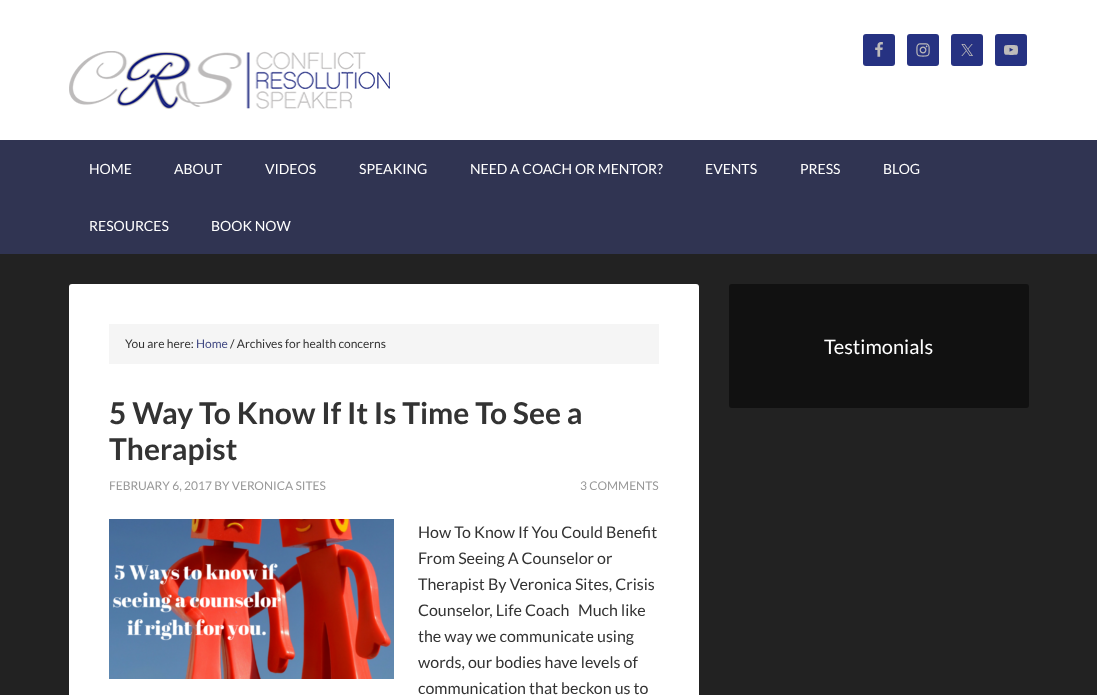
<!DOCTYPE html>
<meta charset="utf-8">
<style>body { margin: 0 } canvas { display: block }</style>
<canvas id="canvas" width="1097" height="695"></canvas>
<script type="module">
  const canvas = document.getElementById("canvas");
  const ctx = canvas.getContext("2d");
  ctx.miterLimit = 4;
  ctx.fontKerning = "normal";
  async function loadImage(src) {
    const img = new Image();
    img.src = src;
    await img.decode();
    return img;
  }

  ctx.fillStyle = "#222222";
  ctx.fillRect(0, 0, 1097, 695);
  ctx.fillStyle = "#ffffff";
  ctx.fillRect(0, 0, 1097, 140);
  ctx.drawImage(await loadImage("img1.png"), 69, 51, 321, 58);
  ctx.fillStyle = "#263282";
  ctx.beginPath();
  ctx.roundRect(863, 34, 32, 32, 3);
  ctx.fill();
  ctx.drawImage(await loadImage("img2.png"), 875, 42, 8, 15);
  ctx.beginPath();
  ctx.roundRect(907, 34, 32, 32, 3);
  ctx.fill();
  ctx.drawImage(await loadImage("img3.png"), 916, 43, 14, 14);
  ctx.beginPath();
  ctx.roundRect(951, 34, 32, 32, 3);
  ctx.fill();
  ctx.drawImage(await loadImage("img4.png"), 961, 44, 12, 12);
  ctx.beginPath();
  ctx.roundRect(995, 34, 32, 32, 3);
  ctx.fill();
  ctx.drawImage(await loadImage("img5.png"), 1004, 45, 14, 10);
  ctx.fillStyle = "#303452";
  ctx.fillRect(0, 140, 1097, 114);
  ctx.font = "14px Lato";
  ctx.fillStyle = "#ffffff";
  ctx.fillText("HOME", 89, 174);
  ctx.fillText("ABOUT", 174, 174);
  ctx.fillText("VIDEOS", 265, 174);
  ctx.fillText("SPEAKING", 359, 174);
  ctx.fillText("NEED A COACH OR MENTOR?", 470, 174);
  ctx.fillText("EVENTS", 705, 174);
  ctx.fillText("PRESS", 800, 174);
  ctx.fillText("BLOG", 883, 174);
  ctx.fillText("RESOURCES", 89, 231);
  ctx.fillText("BOOK NOW", 211, 231);
  ctx.beginPath();
  ctx.roundRect(69, 284, 630, 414, 3);
  ctx.fill();
  ctx.fillStyle = "#f5f5f5";
  ctx.fillRect(109, 324, 550, 40);
  ctx.font = "12px Lato";
  ctx.fillStyle = "#333333";
  ctx.fillText("You are here:", 125, 348);
  ctx.fillStyle = "#404882";
  ctx.fillText("Home", 196, 348);
  ctx.fillStyle = "#333333";
  ctx.fillText("/ Archives for health concerns", 230, 348);
  ctx.font = "bold 30px Lato";
  ctx.fillText("5 Way To Know If It Is Time To See a", 109, 424);
  ctx.fillText("Therapist", 109, 460);
  ctx.font = "12px Lato";
  ctx.fillStyle = "#999999";
  ctx.fillText("FEBRUARY 6, 2017 BY VERONICA SITES", 109, 490);
  ctx.fillText("3 COMMENTS", 580, 490);
  ctx.drawImage(await loadImage("img6.png"), 109, 519, 285, 160);
  ctx.font = "16px Lato";
  ctx.fillStyle = "#333333";
  ctx.fillText("How To Know If You Could Benefit", 418, 538);
  ctx.fillText("From Seeing A Counselor or", 418, 564);
  ctx.fillText("Therapist By Veronica Sites, Crisis", 418, 590);
  ctx.fillText("Counselor, Life Coach", 418, 616);
  ctx.fillText("Much like", 578, 616);
  ctx.fillText("the way we communicate using", 418, 642);
  ctx.fillText("words, our bodies have levels of", 418, 668);
  ctx.fillText("communication that beckon us to", 418, 694);
  ctx.fillStyle = "#111111";
  ctx.beginPath();
  ctx.roundRect(729, 284, 300, 124, 3);
  ctx.fill();
  ctx.font = "20px Lato";
  ctx.fillStyle = "#ffffff";
  ctx.fillText("Testimonials", 824, 354);
</script>
